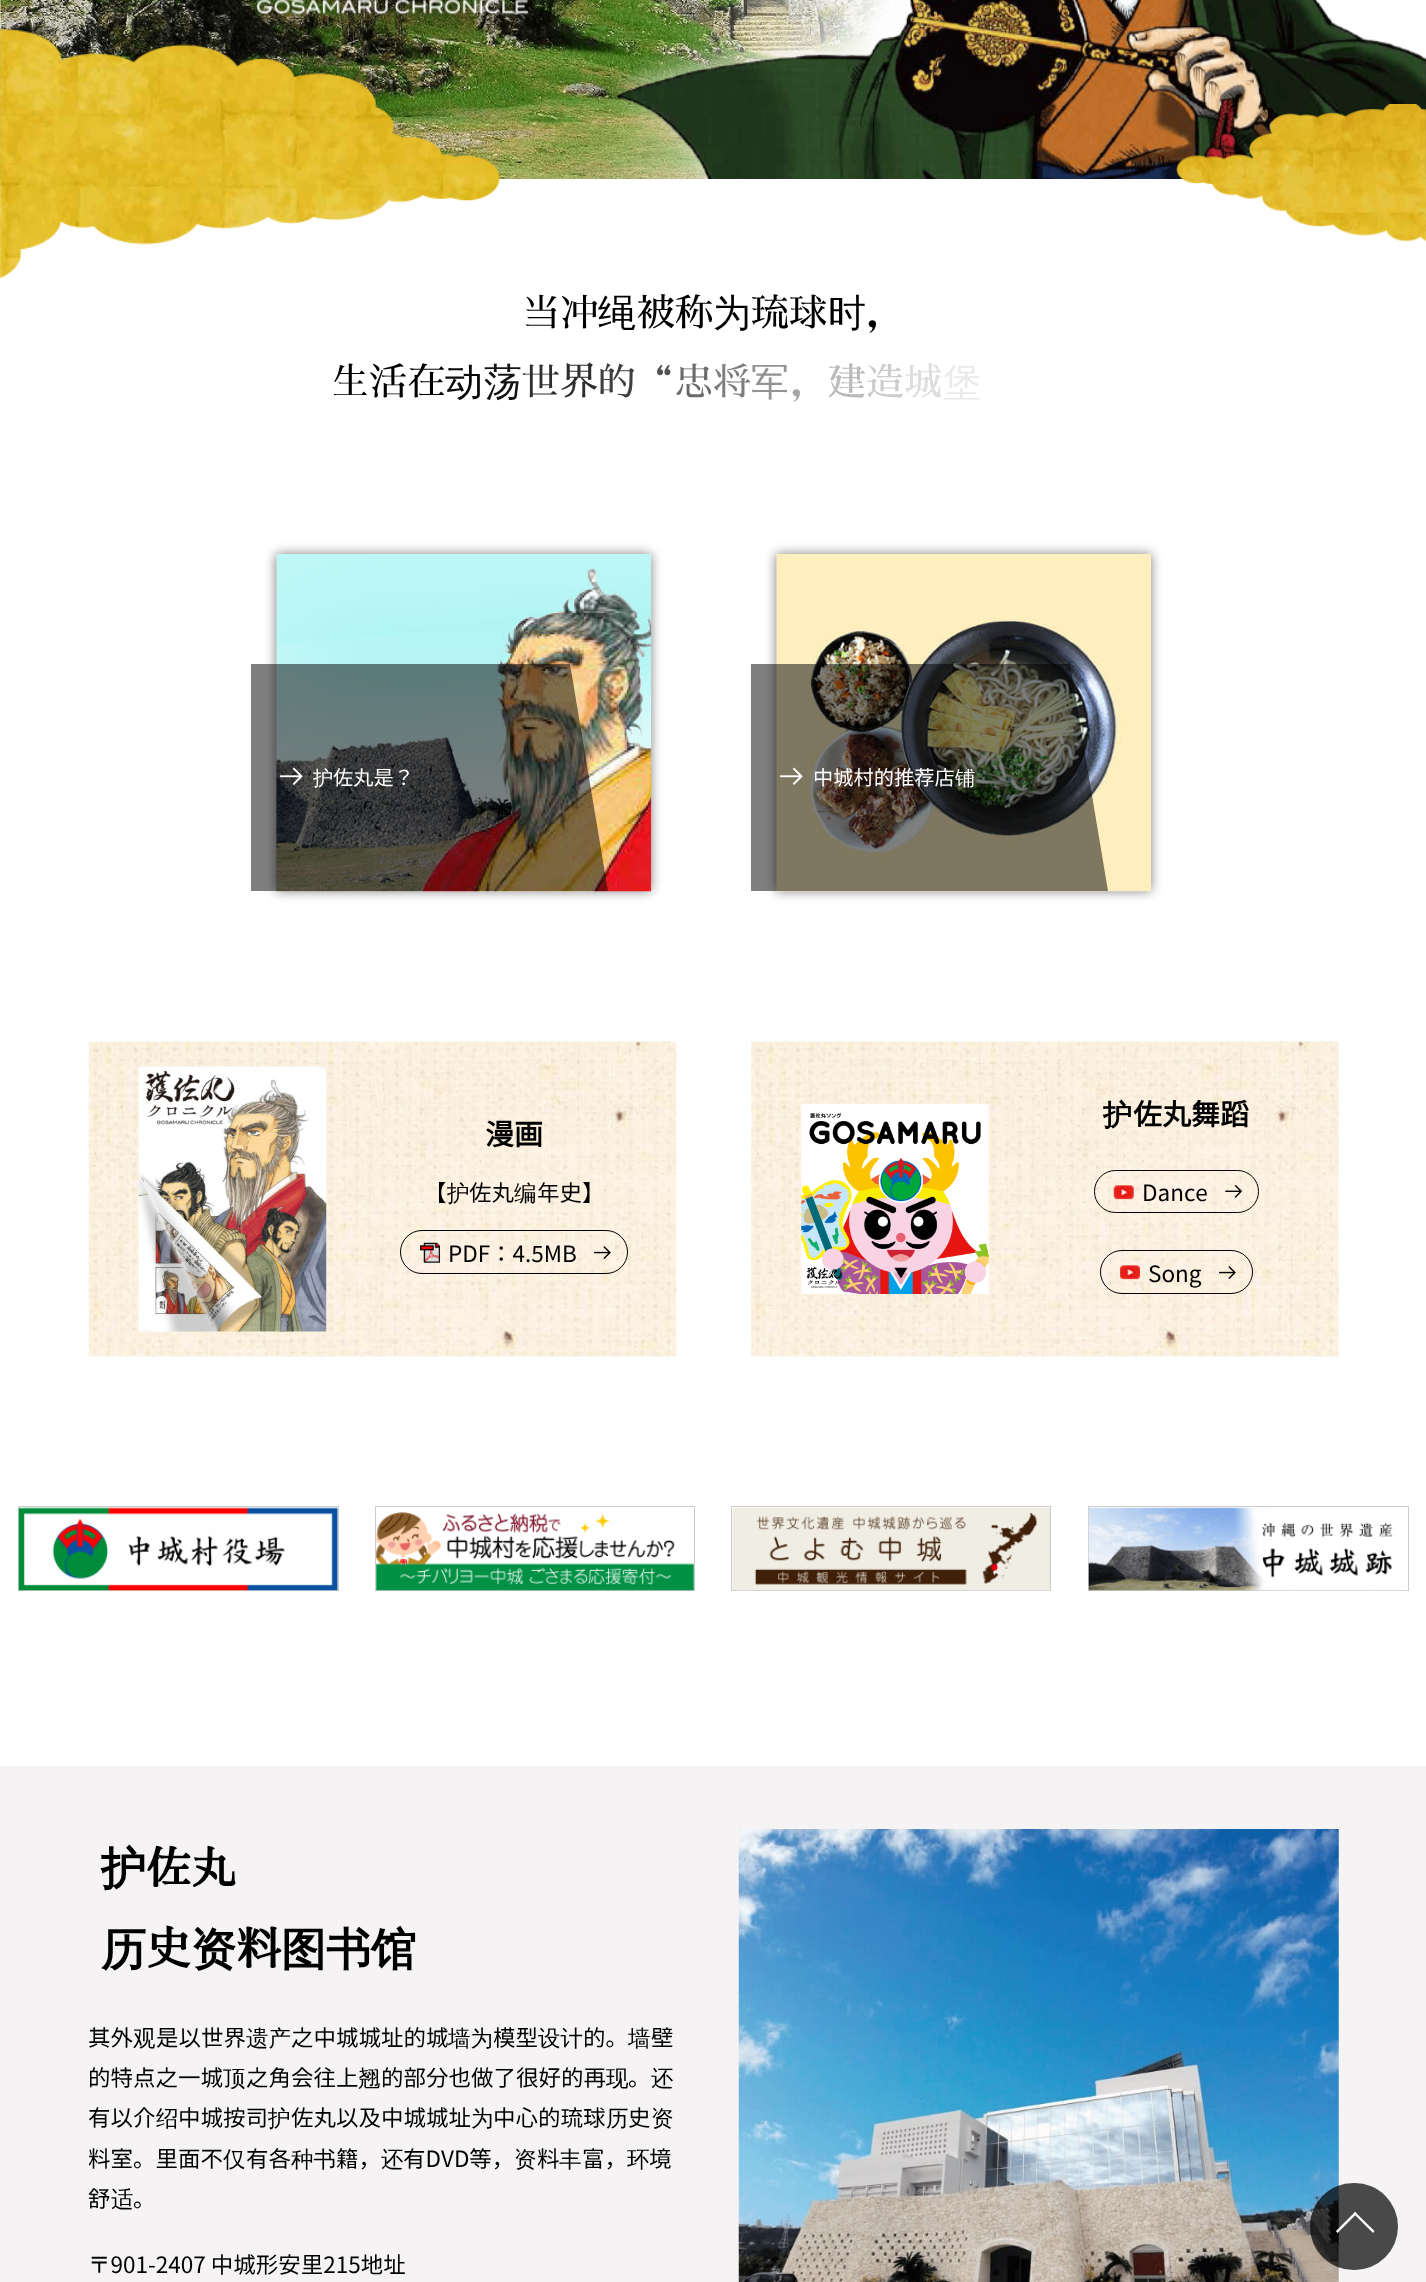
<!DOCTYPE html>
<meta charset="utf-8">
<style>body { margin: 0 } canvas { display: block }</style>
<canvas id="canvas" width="1426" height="2282"></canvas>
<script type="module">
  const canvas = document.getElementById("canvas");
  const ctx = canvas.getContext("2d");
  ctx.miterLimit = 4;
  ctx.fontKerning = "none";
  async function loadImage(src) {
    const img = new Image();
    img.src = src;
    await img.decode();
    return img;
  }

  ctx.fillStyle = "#ffffff";
  ctx.fillRect(0, 0, 1426, 2282);
  ctx.drawImage(await loadImage("img1.png"), 0, 0, 914, 179);
  ctx.drawImage(await loadImage("img3.png"), 489, 0, 425, 179);
  ctx.drawImage(await loadImage("img2.png"), 240, 0, 322, 51);
  ctx.drawImage(await loadImage("img4.png"), 607, 0, 819, 179);
  ctx.drawImage(await loadImage("img5.png"), 0, 29, 500, 250);
  ctx.drawImage(await loadImage("img6.png"), 1176, 104, 250, 138);
  ctx.font = "38px Sawarabi Mincho";
  ctx.fillStyle = "#000000";
  ctx.fillText("当冲", 522, 326);
  ctx.font = "500 38px WenQuanYi Zen Hei";
  ctx.fillText("绳", 598, 326);
  ctx.font = "38px Sawarabi Mincho";
  ctx.fillText("被称", 637, 326);
  ctx.font = "500 38px WenQuanYi Zen Hei";
  ctx.fillText("为", 713, 326);
  ctx.font = "38px Sawarabi Mincho";
  ctx.fillText("琉球", 751, 326);
  ctx.font = "500 38px WenQuanYi Zen Hei";
  ctx.fillText("时", 828, 326);
  ctx.font = "38px Sawarabi Mincho";
  ctx.fillText("，", 866, 326);
  ctx.fillText("生活", 331, 395);
  ctx.fillText("在", 407, 395);
  ctx.font = "500 38px WenQuanYi Zen Hei";
  ctx.fillStyle = "#090909";
  ctx.fillText("动", 445, 395);
  ctx.fillStyle = "#131313";
  ctx.fillText("荡", 484, 395);
  ctx.font = "38px Sawarabi Mincho";
  ctx.fillStyle = "#2e2e2e";
  ctx.fillText("世界", 522, 395);
  ctx.fillStyle = "#404040";
  ctx.fillText("的", 598, 395);
  ctx.fillStyle = "#525252";
  ctx.fillText("“", 637, 395);
  ctx.fillStyle = "#6a6a6a";
  ctx.fillText("忠", 675, 395);
  ctx.fillStyle = "#7e7e7e";
  ctx.fillText("将", 713, 395);
  ctx.font = "500 38px WenQuanYi Zen Hei";
  ctx.fillStyle = "#939393";
  ctx.fillText("军", 751, 395);
  ctx.font = "38px Sawarabi Mincho";
  ctx.fillStyle = "#a7a7a7";
  ctx.fillText("，", 790, 395);
  ctx.fillStyle = "#bababa";
  ctx.fillText("建", 828, 395);
  ctx.fillStyle = "#cccccc";
  ctx.fillText("造", 866, 395);
  ctx.fillStyle = "#dddddd";
  ctx.fillText("城", 904, 395);
  ctx.font = "500 38px WenQuanYi Zen Hei";
  ctx.fillStyle = "#eaeaea";
  ctx.fillText("堡", 943, 395);
  ctx.fillStyle = "rgba(0, 0, 0, 0.5)";
  ctx.filter = "blur(6px)";
  ctx.beginPath();
  ctx.rect(276, 554, 375, 337);
  ctx.fill();
  ctx.filter = "none";
  ctx.drawImage(await loadImage("img7.png"), 276, 554, 376, 338);
  ctx.fillRect(251, 664, 319, 227);
  ctx.drawImage(await loadImage("img8.png"), 280, 767, 23, 18);
  ctx.font = "500 20.25px WenQuanYi Zen Hei";
  ctx.fillStyle = "#ffffff";
  ctx.fillText("护", 313, 785);
  ctx.font = "20.25px Noto Sans JP";
  ctx.fillText("佐丸是？", 333, 785);
  ctx.fillStyle = "rgba(0, 0, 0, 0.5)";
  ctx.beginPath();
  ctx.moveTo(570, 891);
  ctx.lineTo(570, 664);
  ctx.lineTo(608, 891);
  ctx.closePath();
  ctx.fill();
  ctx.filter = "blur(6px)";
  ctx.beginPath();
  ctx.rect(776, 554, 375, 337);
  ctx.fill();
  ctx.filter = "none";
  ctx.drawImage(await loadImage("img9.png"), 776, 554, 375, 338);
  ctx.fillRect(751, 664, 319, 227);
  ctx.drawImage(await loadImage("img10.png"), 780, 767, 23, 18);
  ctx.fillStyle = "#ffffff";
  ctx.fillText("中城村的推荐店", 813, 785);
  ctx.font = "500 20.25px WenQuanYi Zen Hei";
  ctx.fillText("铺", 955, 785);
  ctx.fillStyle = "rgba(0, 0, 0, 0.5)";
  ctx.beginPath();
  ctx.moveTo(1070, 891);
  ctx.lineTo(1070, 664);
  ctx.lineTo(1108, 891);
  ctx.closePath();
  ctx.fill();
  ctx.drawImage(await loadImage("img11.png"), 88, 1041, 589, 316);
  ctx.drawImage(await loadImage("img12.png"), 138, 1066, 189, 266);
  ctx.font = "bold 29px Noto Sans JP";
  ctx.fillStyle = "#000000";
  ctx.fillText("漫画", 485, 1145);
  ctx.font = "22.5px Noto Sans JP";
  ctx.fillText("【", 424, 1201);
  ctx.font = "500 22.5px WenQuanYi Zen Hei";
  ctx.fillText("护", 447, 1201);
  ctx.font = "22.5px Noto Sans JP";
  ctx.fillText("佐丸", 469, 1201);
  ctx.font = "500 22.5px WenQuanYi Zen Hei";
  ctx.fillText("编", 514, 1201);
  ctx.font = "22.5px Noto Sans JP";
  ctx.fillText("年史】", 537, 1201);
  ctx.beginPath();
  ctx.roundRect(400.5, 1230.5, 227, 43, 21.5);
  ctx.strokeStyle = "#000000";
  ctx.stroke();
  ctx.drawImage(await loadImage("img13.png"), 420, 1242, 20, 21);
  ctx.fillText("PDF：4.5MB", 448, 1262);
  ctx.drawImage(await loadImage("img14.png"), 594, 1246, 17, 13);
  ctx.drawImage(await loadImage("img15.png"), 751, 1041, 588, 316);
  ctx.drawImage(await loadImage("img16.png"), 801, 1104, 188, 190);
  ctx.font = "bold 29px WenQuanYi Zen Hei";
  ctx.fillText("护", 1103, 1125);
  ctx.font = "bold 29px Noto Sans JP";
  ctx.fillText("佐丸舞蹈", 1133, 1125);
  ctx.beginPath();
  ctx.roundRect(1094.5, 1170.5, 164, 42, 21);
  ctx.stroke();
  ctx.drawImage(await loadImage("img17.png"), 1113, 1185, 21, 15);
  ctx.font = "22.5px Noto Sans JP";
  ctx.fillText("Dance", 1142, 1201);
  ctx.drawImage(await loadImage("img18.png"), 1225, 1184, 17, 14);
  ctx.beginPath();
  ctx.roundRect(1100.5, 1250.5, 152, 43, 21.5);
  ctx.stroke();
  ctx.drawImage(await loadImage("img19.png"), 1120, 1265, 20, 15);
  ctx.fillText("Song", 1148, 1282);
  ctx.drawImage(await loadImage("img20.png"), 1219, 1266, 17, 13);
  ctx.strokeStyle = "#cccccc";
  ctx.strokeRect(18.5, 1506.5, 320, 84);
  ctx.drawImage(await loadImage("img21.png"), 18, 1507, 320, 84);
  ctx.strokeRect(375.5, 1506.5, 319, 84);
  ctx.drawImage(await loadImage("img22.png"), 376, 1512, 318, 79);
  ctx.strokeRect(731.5, 1506.5, 319, 84);
  ctx.drawImage(await loadImage("img23.png"), 732, 1507, 318, 84);
  ctx.strokeRect(1088.5, 1506.5, 320, 84);
  ctx.drawImage(await loadImage("img24.png"), 1088, 1507, 320, 84);
  ctx.fillStyle = "#f5f3f4";
  ctx.fillRect(0, 1766, 1426, 516);
  ctx.font = "bold 45px WenQuanYi Zen Hei";
  ctx.fillStyle = "#000000";
  ctx.fillText("护", 101, 1884);
  ctx.font = "bold 45px Sawarabi Mincho";
  ctx.fillText("佐丸", 146, 1884);
  ctx.font = "bold 45px WenQuanYi Zen Hei";
  ctx.fillText("历", 101, 1965);
  ctx.font = "bold 45px Sawarabi Mincho";
  ctx.fillText("史", 146, 1965);
  ctx.font = "bold 45px WenQuanYi Zen Hei";
  ctx.fillText("资", 191, 1965);
  ctx.font = "bold 45px Sawarabi Mincho";
  ctx.fillText("料", 236, 1965);
  ctx.font = "bold 45px WenQuanYi Zen Hei";
  ctx.fillText("图书馆", 281, 1965);
  ctx.font = "22.5px Noto Sans JP";
  ctx.fillText("其外", 88, 2046);
  ctx.font = "500 22.5px WenQuanYi Zen Hei";
  ctx.fillText("观", 133, 2046);
  ctx.font = "22.5px Noto Sans JP";
  ctx.fillText("是以世界", 156, 2046);
  ctx.font = "500 22.5px WenQuanYi Zen Hei";
  ctx.fillText("遗产", 246, 2046);
  ctx.font = "22.5px Noto Sans JP";
  ctx.fillText("之中城城址的城", 291, 2046);
  ctx.font = "500 22.5px WenQuanYi Zen Hei";
  ctx.fillText("墙为", 448, 2046);
  ctx.font = "22.5px Noto Sans JP";
  ctx.fillText("模型", 493, 2046);
  ctx.font = "500 22.5px WenQuanYi Zen Hei";
  ctx.fillText("设计", 538, 2046);
  ctx.font = "22.5px Noto Sans JP";
  ctx.fillText("的。", 583, 2046);
  ctx.font = "500 22.5px WenQuanYi Zen Hei";
  ctx.fillText("墙", 628, 2046);
  ctx.font = "22.5px Noto Sans JP";
  ctx.fillText("壁", 651, 2046);
  ctx.fillText("的特点之一城", 88, 2086);
  ctx.font = "500 22.5px WenQuanYi Zen Hei";
  ctx.fillText("顶", 223, 2086);
  ctx.font = "22.5px Noto Sans JP";
  ctx.fillText("之角会往上", 246, 2086);
  ctx.font = "500 22.5px WenQuanYi Zen Hei";
  ctx.fillText("翘", 358, 2086);
  ctx.font = "22.5px Noto Sans JP";
  ctx.fillText("的部分也做了很好的再", 381, 2086);
  ctx.font = "500 22.5px WenQuanYi Zen Hei";
  ctx.fillText("现", 606, 2086);
  ctx.font = "22.5px Noto Sans JP";
  ctx.fillText("。", 628, 2086);
  ctx.font = "500 22.5px WenQuanYi Zen Hei";
  ctx.fillText("还", 651, 2086);
  ctx.font = "22.5px Noto Sans JP";
  ctx.fillText("有以介", 88, 2126);
  ctx.font = "500 22.5px WenQuanYi Zen Hei";
  ctx.fillText("绍", 156, 2126);
  ctx.font = "22.5px Noto Sans JP";
  ctx.fillText("中城按司", 178, 2126);
  ctx.font = "500 22.5px WenQuanYi Zen Hei";
  ctx.fillText("护", 268, 2126);
  ctx.font = "22.5px Noto Sans JP";
  ctx.fillText("佐丸以及中城城址", 291, 2126);
  ctx.font = "500 22.5px WenQuanYi Zen Hei";
  ctx.fillText("为", 471, 2126);
  ctx.font = "22.5px Noto Sans JP";
  ctx.fillText("中心的琉球", 493, 2126);
  ctx.font = "500 22.5px WenQuanYi Zen Hei";
  ctx.fillText("历", 606, 2126);
  ctx.font = "22.5px Noto Sans JP";
  ctx.fillText("史", 628, 2126);
  ctx.font = "500 22.5px WenQuanYi Zen Hei";
  ctx.fillText("资", 651, 2126);
  ctx.font = "22.5px Noto Sans JP";
  ctx.fillText("料室。里面不", 88, 2167);
  ctx.font = "500 22.5px WenQuanYi Zen Hei";
  ctx.fillText("仅", 223, 2167);
  ctx.font = "22.5px Noto Sans JP";
  ctx.fillText("有各", 246, 2167);
  ctx.font = "500 22.5px WenQuanYi Zen Hei";
  ctx.fillText("种书", 291, 2167);
  ctx.font = "22.5px Noto Sans JP";
  ctx.fillText("籍，", 336, 2167);
  ctx.font = "500 22.5px WenQuanYi Zen Hei";
  ctx.fillText("还", 381, 2167);
  ctx.font = "22.5px Noto Sans JP";
  ctx.fillText("有DVD等，", 403, 2167);
  ctx.font = "500 22.5px WenQuanYi Zen Hei";
  ctx.fillText("资", 514, 2167);
  ctx.font = "22.5px Noto Sans JP";
  ctx.fillText("料", 537, 2167);
  ctx.font = "500 22.5px WenQuanYi Zen Hei";
  ctx.fillText("丰", 559, 2167);
  ctx.font = "22.5px Noto Sans JP";
  ctx.fillText("富，", 582, 2167);
  ctx.font = "500 22.5px WenQuanYi Zen Hei";
  ctx.fillText("环", 627, 2167);
  ctx.font = "22.5px Noto Sans JP";
  ctx.fillText("境", 649, 2167);
  ctx.fillText("舒", 88, 2207);
  ctx.font = "500 22.5px WenQuanYi Zen Hei";
  ctx.fillText("适", 111, 2207);
  ctx.font = "22.5px Noto Sans JP";
  ctx.fillText("。", 133, 2207);
  ctx.fillText("〒901-2407 中城形安里215地址", 88, 2273);
  ctx.drawImage(await loadImage("img25.png"), 738, 1829, 601, 453);
  ctx.fillStyle = "rgba(0, 0, 0, 0.7)";
  ctx.beginPath();
  ctx.roundRect(1310, 2183, 88, 87, 43.5);
  ctx.fill();
  ctx.fillStyle = "#ffffff";
  ctx.beginPath();
  ctx.moveTo(1336, 2231);
  ctx.lineTo(1355, 2212);
  ctx.lineTo(1357, 2213.5);
  ctx.lineTo(1337.5, 2233);
  ctx.closePath();
  ctx.fill();
  ctx.beginPath();
  ctx.moveTo(1353.5, 2213.5);
  ctx.lineTo(1355, 2212);
  ctx.lineTo(1374.5, 2231);
  ctx.lineTo(1373, 2233);
  ctx.closePath();
  ctx.fill();
</script>
